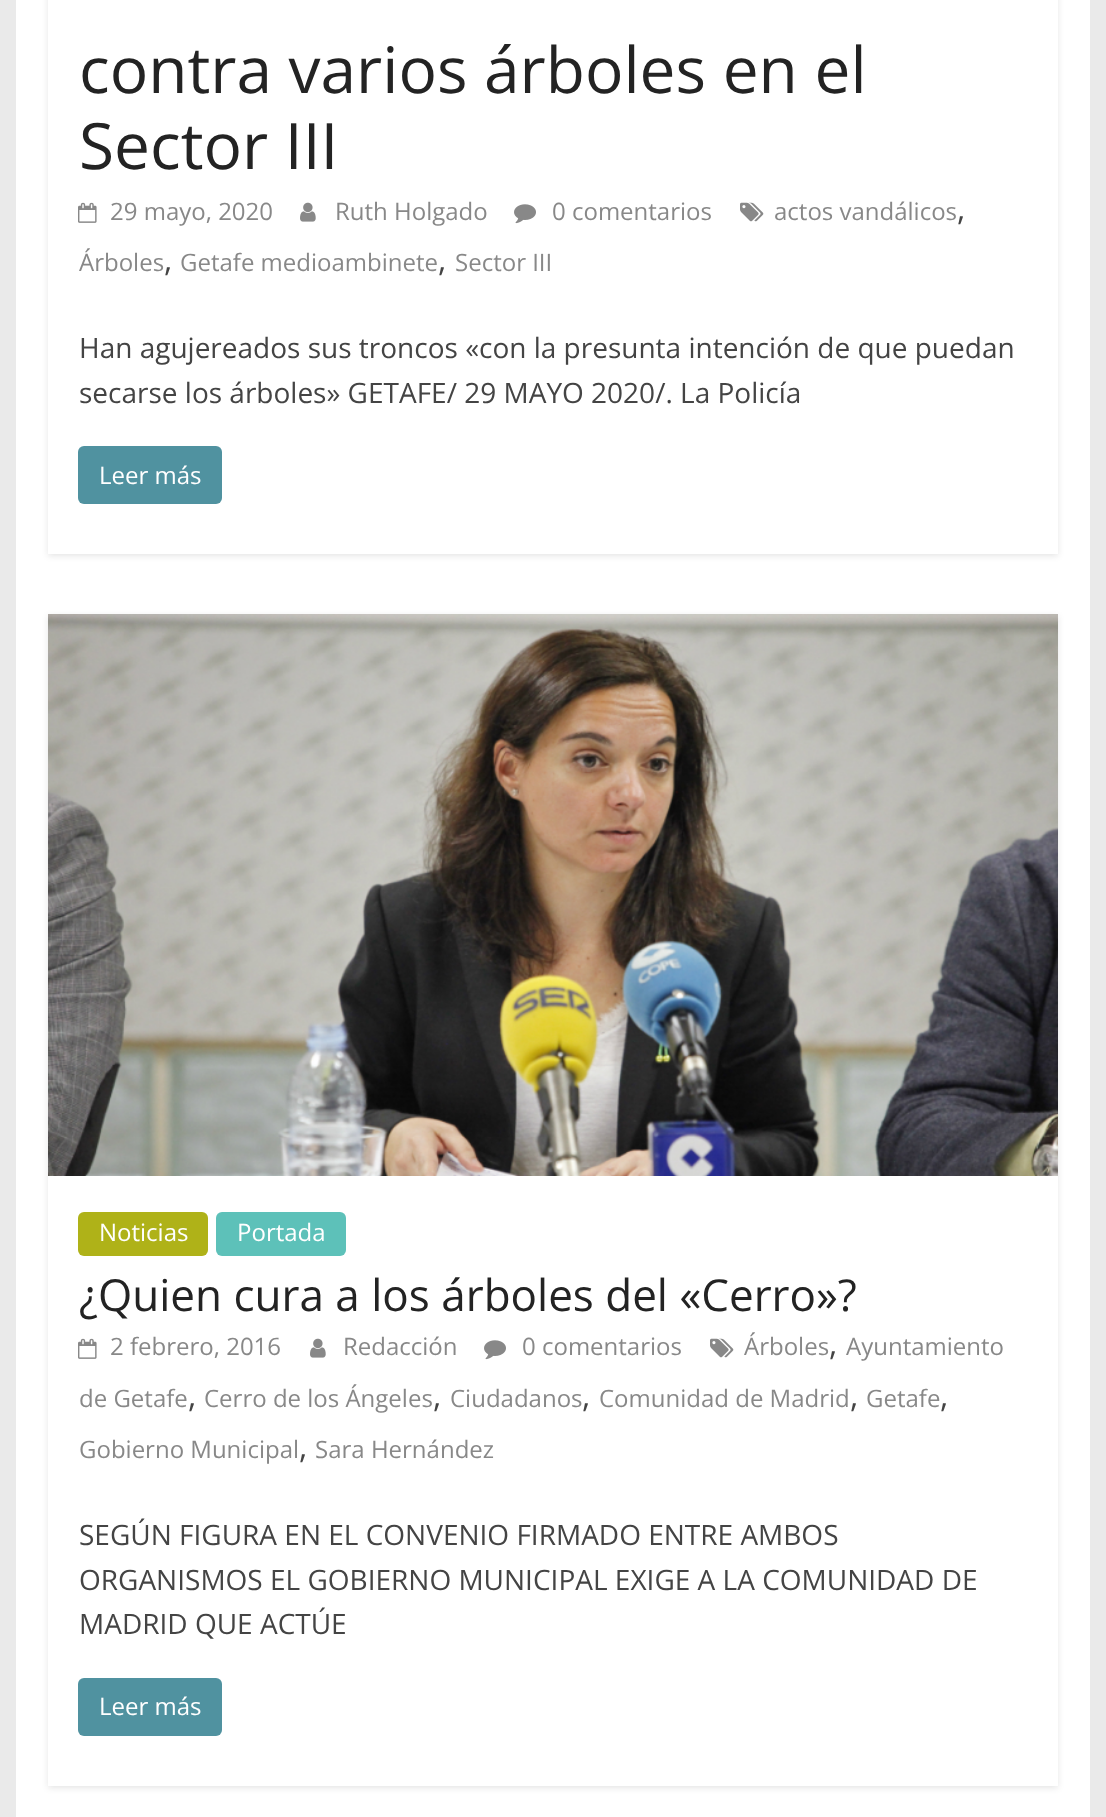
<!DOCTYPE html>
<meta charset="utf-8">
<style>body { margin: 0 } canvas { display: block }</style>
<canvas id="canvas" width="1106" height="1817"></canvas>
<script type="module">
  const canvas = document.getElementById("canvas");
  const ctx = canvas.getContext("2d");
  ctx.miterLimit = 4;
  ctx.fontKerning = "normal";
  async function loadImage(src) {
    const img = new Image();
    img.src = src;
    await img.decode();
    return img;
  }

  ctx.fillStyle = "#eaeaea";
  ctx.fillRect(0, 0, 1106, 1817);
  ctx.fillStyle = "#ffffff";
  ctx.fillRect(16, 0, 1074, 1817);
  ctx.save();
  ctx.beginPath();
  ctx.moveTo(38, 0);
  ctx.lineTo(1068, 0);
  ctx.lineTo(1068, 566);
  ctx.lineTo(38, 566);
  ctx.closePath();
  ctx.moveTo(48, -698);
  ctx.lineTo(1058, -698);
  ctx.lineTo(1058, 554);
  ctx.lineTo(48, 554);
  ctx.closePath();
  ctx.clip("evenodd");
  ctx.fillStyle = "rgba(0, 0, 0, 0.1)";
  ctx.filter = "blur(3px)";
  ctx.beginPath();
  ctx.rect(48, -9, 1010, 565);
  ctx.fill();
  ctx.filter = "none";
  ctx.restore();
  ctx.font = "64px Open Sans";
  ctx.fillStyle = "#232323";
  ctx.fillText("contra varios árboles en el", 79, 93);
  ctx.fillText("Sector III", 79, 169);
  ctx.drawImage(await loadImage("img1.png"), 740, 202, 24, 20);
  ctx.font = "24px Open Sans";
  ctx.fillStyle = "#888888";
  ctx.fillText("actos vandálicos", 774, 220);
  ctx.font = "32px Open Sans";
  ctx.fillStyle = "#444444";
  ctx.fillText(",", 957, 220);
  ctx.font = "24px Open Sans";
  ctx.fillStyle = "#888888";
  ctx.fillText("Árboles", 79, 271);
  ctx.font = "32px Open Sans";
  ctx.fillStyle = "#444444";
  ctx.fillText(",", 164, 271);
  ctx.font = "24px Open Sans";
  ctx.fillStyle = "#888888";
  ctx.fillText("Getafe medioambinete", 180, 271);
  ctx.font = "32px Open Sans";
  ctx.fillStyle = "#444444";
  ctx.fillText(",", 438, 271);
  ctx.font = "24px Open Sans";
  ctx.fillStyle = "#888888";
  ctx.fillText("Sector III", 455, 271);
  ctx.drawImage(await loadImage("img2.png"), 78, 202, 19, 21);
  ctx.fillText("29 mayo, 2020", 110, 220);
  ctx.drawImage(await loadImage("img3.png"), 300, 202, 16, 20);
  ctx.fillText("Ruth Holgado", 335, 220);
  ctx.drawImage(await loadImage("img4.png"), 514, 204, 22, 20);
  ctx.fillText("0 comentarios", 552, 220);
  ctx.font = "28px Open Sans";
  ctx.fillStyle = "#444444";
  ctx.fillText("Han agujereados sus troncos «con la presunta intención de que puedan", 79, 358);
  ctx.fillText("secarse los árboles» GETAFE/ 29 MAYO 2020/. La Policía", 79, 403);
  ctx.fillStyle = "#5092a0";
  ctx.beginPath();
  ctx.roundRect(78, 446, 144, 58, 6);
  ctx.fill();
  ctx.font = "24px Open Sans";
  ctx.fillStyle = "#ffffff";
  ctx.fillText("Leer más", 99, 484);
  ctx.save();
  ctx.beginPath();
  ctx.moveTo(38, 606);
  ctx.lineTo(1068, 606);
  ctx.lineTo(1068, 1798);
  ctx.lineTo(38, 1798);
  ctx.closePath();
  ctx.moveTo(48, 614);
  ctx.lineTo(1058, 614);
  ctx.lineTo(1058, 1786);
  ctx.lineTo(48, 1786);
  ctx.closePath();
  ctx.clip("evenodd");
  ctx.fillStyle = "rgba(0, 0, 0, 0.1)";
  ctx.filter = "blur(3px)";
  ctx.beginPath();
  ctx.rect(48, 616, 1010, 1172);
  ctx.fill();
  ctx.filter = "none";
  ctx.restore();
  ctx.drawImage(await loadImage("img5.png"), 48, 614, 1010, 562);
  ctx.fillStyle = "#afb218";
  ctx.beginPath();
  ctx.roundRect(78, 1212, 130, 44, 6);
  ctx.fill();
  ctx.fillStyle = "#ffffff";
  ctx.fillText("Noticias", 99, 1241);
  ctx.fillStyle = "#5dc1b9";
  ctx.beginPath();
  ctx.roundRect(216, 1212, 130, 44, 6);
  ctx.fill();
  ctx.fillStyle = "#ffffff";
  ctx.fillText("Portada", 237, 1241);
  ctx.font = "44px Open Sans";
  ctx.fillStyle = "#232323";
  ctx.fillText("¿Quien cura a los árboles del «Cerro»?", 79, 1311);
  ctx.drawImage(await loadImage("img1.png"), 710, 1338, 24, 20);
  ctx.font = "24px Open Sans";
  ctx.fillStyle = "#888888";
  ctx.fillText("Árboles", 744, 1355);
  ctx.font = "32px Open Sans";
  ctx.fillStyle = "#444444";
  ctx.fillText(",", 829, 1355);
  ctx.font = "24px Open Sans";
  ctx.fillStyle = "#888888";
  ctx.fillText("Ayuntamiento", 846, 1355);
  ctx.fillText("de Getafe", 79, 1407);
  ctx.font = "32px Open Sans";
  ctx.fillStyle = "#444444";
  ctx.fillText(",", 188, 1407);
  ctx.font = "24px Open Sans";
  ctx.fillStyle = "#888888";
  ctx.fillText("Cerro de los Ángeles", 204, 1407);
  ctx.font = "32px Open Sans";
  ctx.fillStyle = "#444444";
  ctx.fillText(",", 433, 1407);
  ctx.font = "24px Open Sans";
  ctx.fillStyle = "#888888";
  ctx.fillText("Ciudadanos", 450, 1407);
  ctx.font = "32px Open Sans";
  ctx.fillStyle = "#444444";
  ctx.fillText(",", 582, 1407);
  ctx.font = "24px Open Sans";
  ctx.fillStyle = "#888888";
  ctx.fillText("Comunidad de Madrid", 599, 1407);
  ctx.font = "32px Open Sans";
  ctx.fillStyle = "#444444";
  ctx.fillText(",", 850, 1407);
  ctx.font = "24px Open Sans";
  ctx.fillStyle = "#888888";
  ctx.fillText("Getafe", 866, 1407);
  ctx.font = "32px Open Sans";
  ctx.fillStyle = "#444444";
  ctx.fillText(",", 940, 1407);
  ctx.font = "24px Open Sans";
  ctx.fillStyle = "#888888";
  ctx.fillText("Gobierno Municipal", 79, 1458);
  ctx.font = "32px Open Sans";
  ctx.fillStyle = "#444444";
  ctx.fillText(",", 299, 1458);
  ctx.font = "24px Open Sans";
  ctx.fillStyle = "#888888";
  ctx.fillText("Sara Hernández", 315, 1458);
  ctx.drawImage(await loadImage("img2.png"), 78, 1338, 19, 21);
  ctx.fillText("2 febrero, 2016", 110, 1355);
  ctx.drawImage(await loadImage("img3.png"), 310, 1338, 16, 20);
  ctx.fillText("Redacción", 343, 1355);
  ctx.drawImage(await loadImage("img4.png"), 484, 1340, 22, 20);
  ctx.fillText("0 comentarios", 522, 1355);
  ctx.font = "28px Open Sans";
  ctx.fillStyle = "#444444";
  ctx.fillText("SEGÚN FIGURA EN EL CONVENIO FIRMADO ENTRE AMBOS", 79, 1545);
  ctx.fillText("ORGANISMOS EL GOBIERNO MUNICIPAL EXIGE A LA COMUNIDAD DE", 79, 1590);
  ctx.fillText("MADRID QUE ACTÚE", 79, 1634);
  ctx.fillStyle = "#5092a0";
  ctx.beginPath();
  ctx.roundRect(78, 1678, 144, 58, 6);
  ctx.fill();
  ctx.font = "24px Open Sans";
  ctx.fillStyle = "#ffffff";
  ctx.fillText("Leer más", 99, 1715);
</script>
